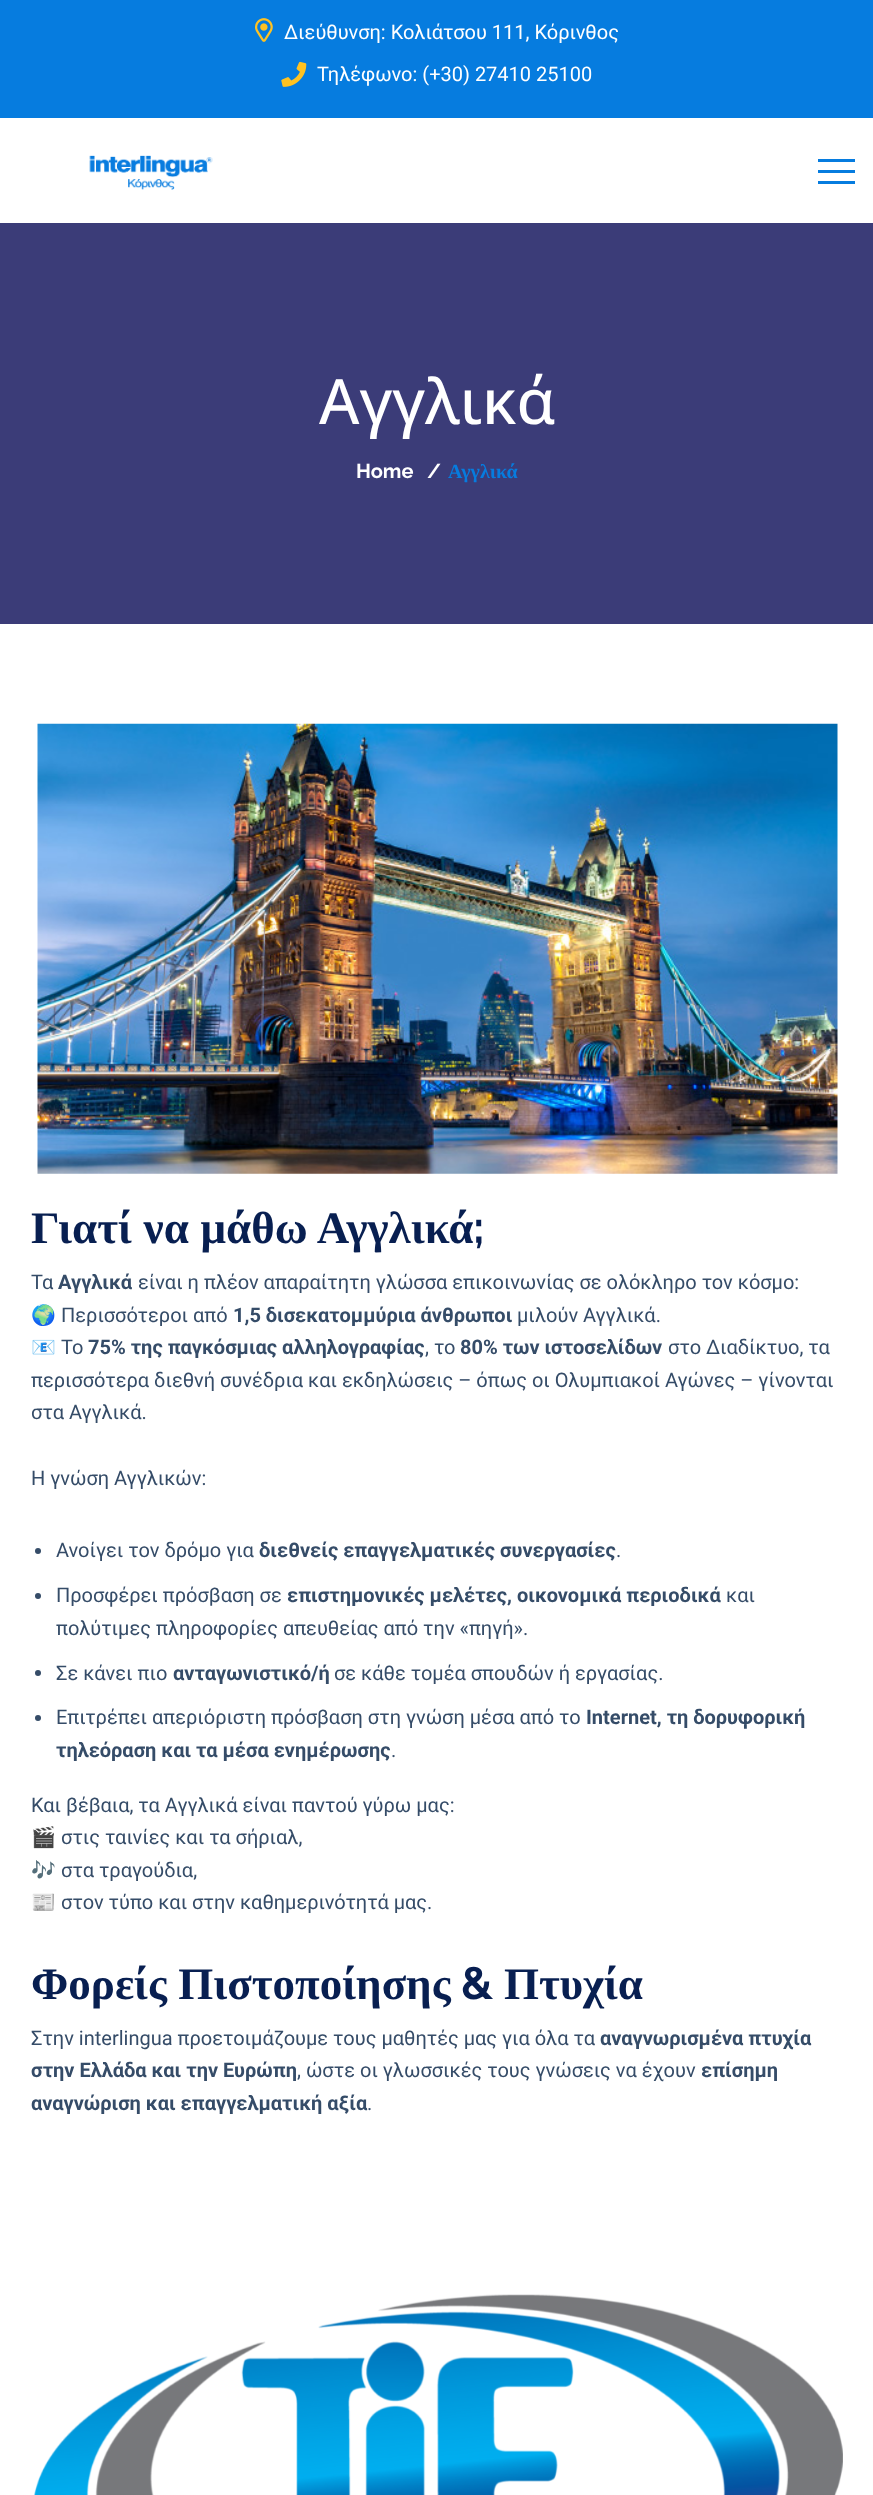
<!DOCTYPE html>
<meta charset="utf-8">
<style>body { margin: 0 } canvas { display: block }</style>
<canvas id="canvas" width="873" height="2495"></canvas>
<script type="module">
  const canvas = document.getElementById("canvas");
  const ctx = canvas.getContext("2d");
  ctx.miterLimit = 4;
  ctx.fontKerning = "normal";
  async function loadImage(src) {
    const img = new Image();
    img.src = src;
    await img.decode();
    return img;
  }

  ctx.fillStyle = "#ffffff";
  ctx.fillRect(0, 0, 873, 2495);
  ctx.fillStyle = "#067cdf";
  ctx.fillRect(0, 0, 873, 118);
  ctx.drawImage(await loadImage("img1.png"), 255, 18, 18, 24);
  ctx.font = "20px Roboto";
  ctx.fillStyle = "#ffffff";
  ctx.fillText("Διεύθυνση: Κολιάτσου 111, Κόρινθος", 284, 39);
  ctx.drawImage(await loadImage("img2.png"), 281, 61, 26, 26);
  ctx.fillText("Τηλέφωνο: (+30) 27410 25100", 317, 81);
  ctx.drawImage(await loadImage("img3.png"), 89, 155, 124, 35);
  ctx.fillStyle = "#067cdf";
  ctx.fillRect(818, 159, 37, 3);
  ctx.fillRect(818, 170, 37, 3);
  ctx.fillRect(818, 181, 37, 3);
  ctx.fillStyle = "#3b3c78";
  ctx.fillRect(0, 223, 873, 401);
  ctx.font = "500 62.5px Open Sans";
  ctx.fillStyle = "#ffffff";
  ctx.fillText("Αγγλικά", 319, 424);
  ctx.font = "bold 20px Raleway";
  ctx.fillText("Home", 356, 478);
  ctx.fillText("/", 427, 478);
  ctx.font = "bold 20px Liberation Serif";
  ctx.fillStyle = "#067cdf";
  ctx.fillText("Αγγλικά", 448, 478);
  ctx.drawImage(await loadImage("img4.png"), 37, 723, 801, 451);
  ctx.wordSpacing = "0.5px";
  ctx.font = "bold 45px Liberation Serif";
  ctx.fillStyle = "#081f51";
  ctx.fillText("Γιατί να μάθω Αγγλικά", 31, 1243);
  ctx.wordSpacing = "0px";
  ctx.font = "bold 45px Raleway";
  ctx.fillText(";", 473, 1243);
  ctx.font = "20px Roboto";
  ctx.fillStyle = "#354c68";
  ctx.fillText("Τα", 31, 1289);
  ctx.font = "bold 20px Roboto";
  ctx.fillText("Αγγλικά", 58, 1289);
  ctx.font = "20px Roboto";
  ctx.fillText("είναι η πλέον απαραίτητη γλώσσα επικοινωνίας σε ολόκληρο τον κόσμο:", 138, 1289);
  ctx.font = "20px Noto Color Emoji";
  ctx.fillText("🌍", 31, 1322);
  ctx.font = "20px Roboto";
  ctx.fillText("Περισσότεροι από", 61, 1322);
  ctx.font = "bold 20px Roboto";
  ctx.fillText("1,5 δισεκατομμύρια άνθρωποι", 233, 1322);
  ctx.font = "20px Roboto";
  ctx.fillText("μιλούν Αγγλικά.", 517, 1322);
  ctx.font = "20px Noto Color Emoji";
  ctx.fillText("📧", 31, 1354);
  ctx.font = "20px Roboto";
  ctx.fillText("Το", 61, 1354);
  ctx.font = "bold 20px Roboto";
  ctx.fillText("75% της παγκόσμιας αλληλογραφίας", 88, 1354);
  ctx.font = "20px Roboto";
  ctx.fillText(", το", 425, 1354);
  ctx.font = "bold 20px Roboto";
  ctx.fillText("80% των ιστοσελίδων", 460, 1354);
  ctx.font = "20px Roboto";
  ctx.fillText("στο Διαδίκτυο, τα", 668, 1354);
  ctx.fillText("περισσότερα διεθνή συνέδρια και εκδηλώσεις – όπως οι Ολυμπιακοί Αγώνες – γίνονται", 31, 1387);
  ctx.fillText("στα Αγγλικά.", 31, 1419);
  ctx.fillText("Η γνώση Αγγλικών:", 31, 1485);
  ctx.beginPath();
  ctx.arc(38, 1551, 3, 0, Math.PI * 2);
  ctx.fill();
  ctx.fillText("Ανοίγει τον δρόμο για", 56, 1557);
  ctx.font = "bold 20px Roboto";
  ctx.fillText("διεθνείς επαγγελματικές συνεργασίες", 259, 1557);
  ctx.font = "20px Roboto";
  ctx.fillText(".", 616, 1557);
  ctx.beginPath();
  ctx.arc(38, 1596, 3, 0, Math.PI * 2);
  ctx.fill();
  ctx.fillText("Προσφέρει πρόσβαση σε", 56, 1602);
  ctx.font = "bold 20px Roboto";
  ctx.fillText("επιστημονικές μελέτες, οικονομικά περιοδικά", 287, 1602);
  ctx.font = "20px Roboto";
  ctx.fillText("και", 726, 1602);
  ctx.fillText("πολύτιμες πληροφορίες απευθείας από την «πηγή».", 56, 1635);
  ctx.beginPath();
  ctx.arc(38, 1673, 3, 0, Math.PI * 2);
  ctx.fill();
  ctx.fillText("Σε κάνει πιο", 56, 1680);
  ctx.font = "bold 20px Roboto";
  ctx.fillText("ανταγωνιστικό/ή", 173, 1680);
  ctx.font = "20px Roboto";
  ctx.fillText("σε κάθε τομέα σπουδών ή εργασίας.", 334, 1680);
  ctx.beginPath();
  ctx.arc(38, 1718, 3, 0, Math.PI * 2);
  ctx.fill();
  ctx.fillText("Επιτρέπει απεριόριστη πρόσβαση στη γνώση μέσα από το", 56, 1724);
  ctx.font = "bold 20px Roboto";
  ctx.fillText("Internet, τη δορυφορική", 586, 1724);
  ctx.fillText("τηλεόραση και τα μέσα ενημέρωσης", 56, 1757);
  ctx.font = "20px Roboto";
  ctx.fillText(".", 391, 1757);
  ctx.fillText("Και βέβαια, τα Αγγλικά είναι παντού γύρω μας:", 31, 1812);
  ctx.font = "20px Noto Color Emoji";
  ctx.fillText("🎬", 31, 1844);
  ctx.font = "20px Roboto";
  ctx.fillText("στις ταινίες και τα σήριαλ,", 61, 1844);
  ctx.font = "20px Noto Color Emoji";
  ctx.fillText("🎶", 31, 1877);
  ctx.font = "20px Roboto";
  ctx.fillText("στα τραγούδια,", 61, 1877);
  ctx.font = "20px Noto Color Emoji";
  ctx.fillText("📰", 31, 1909);
  ctx.font = "20px Roboto";
  ctx.fillText("στον τύπο και στην καθημερινότητά μας.", 61, 1909);
  ctx.font = "bold 45px Liberation Serif";
  ctx.fillStyle = "#081f51";
  ctx.fillText("Φορείς Πιστοποίησης", 31, 1999);
  ctx.font = "bold 45px Raleway";
  ctx.fillText("&", 461, 1999);
  ctx.font = "bold 45px Liberation Serif";
  ctx.fillText("Πτυχία", 504, 1999);
  ctx.font = "20px Roboto";
  ctx.fillStyle = "#354c68";
  ctx.fillText("Στην interlingua προετοιμάζουμε τους μαθητές μας για όλα τα", 31, 2045);
  ctx.font = "bold 20px Roboto";
  ctx.fillText("αναγνωρισμένα πτυχία", 600, 2045);
  ctx.fillText("στην Ελλάδα και την Ευρώπη", 31, 2077);
  ctx.font = "20px Roboto";
  ctx.fillText(", ώστε οι γλωσσικές τους γνώσεις να έχουν", 297, 2077);
  ctx.font = "bold 20px Roboto";
  ctx.fillText("επίσημη", 701, 2077);
  ctx.fillText("αναγνώριση και επαγγελματική αξία", 31, 2110);
  ctx.font = "20px Roboto";
  ctx.fillText(".", 367, 2110);
  ctx.drawImage(await loadImage("img5.png"), 34, 2294, 809, 201);
</script>
